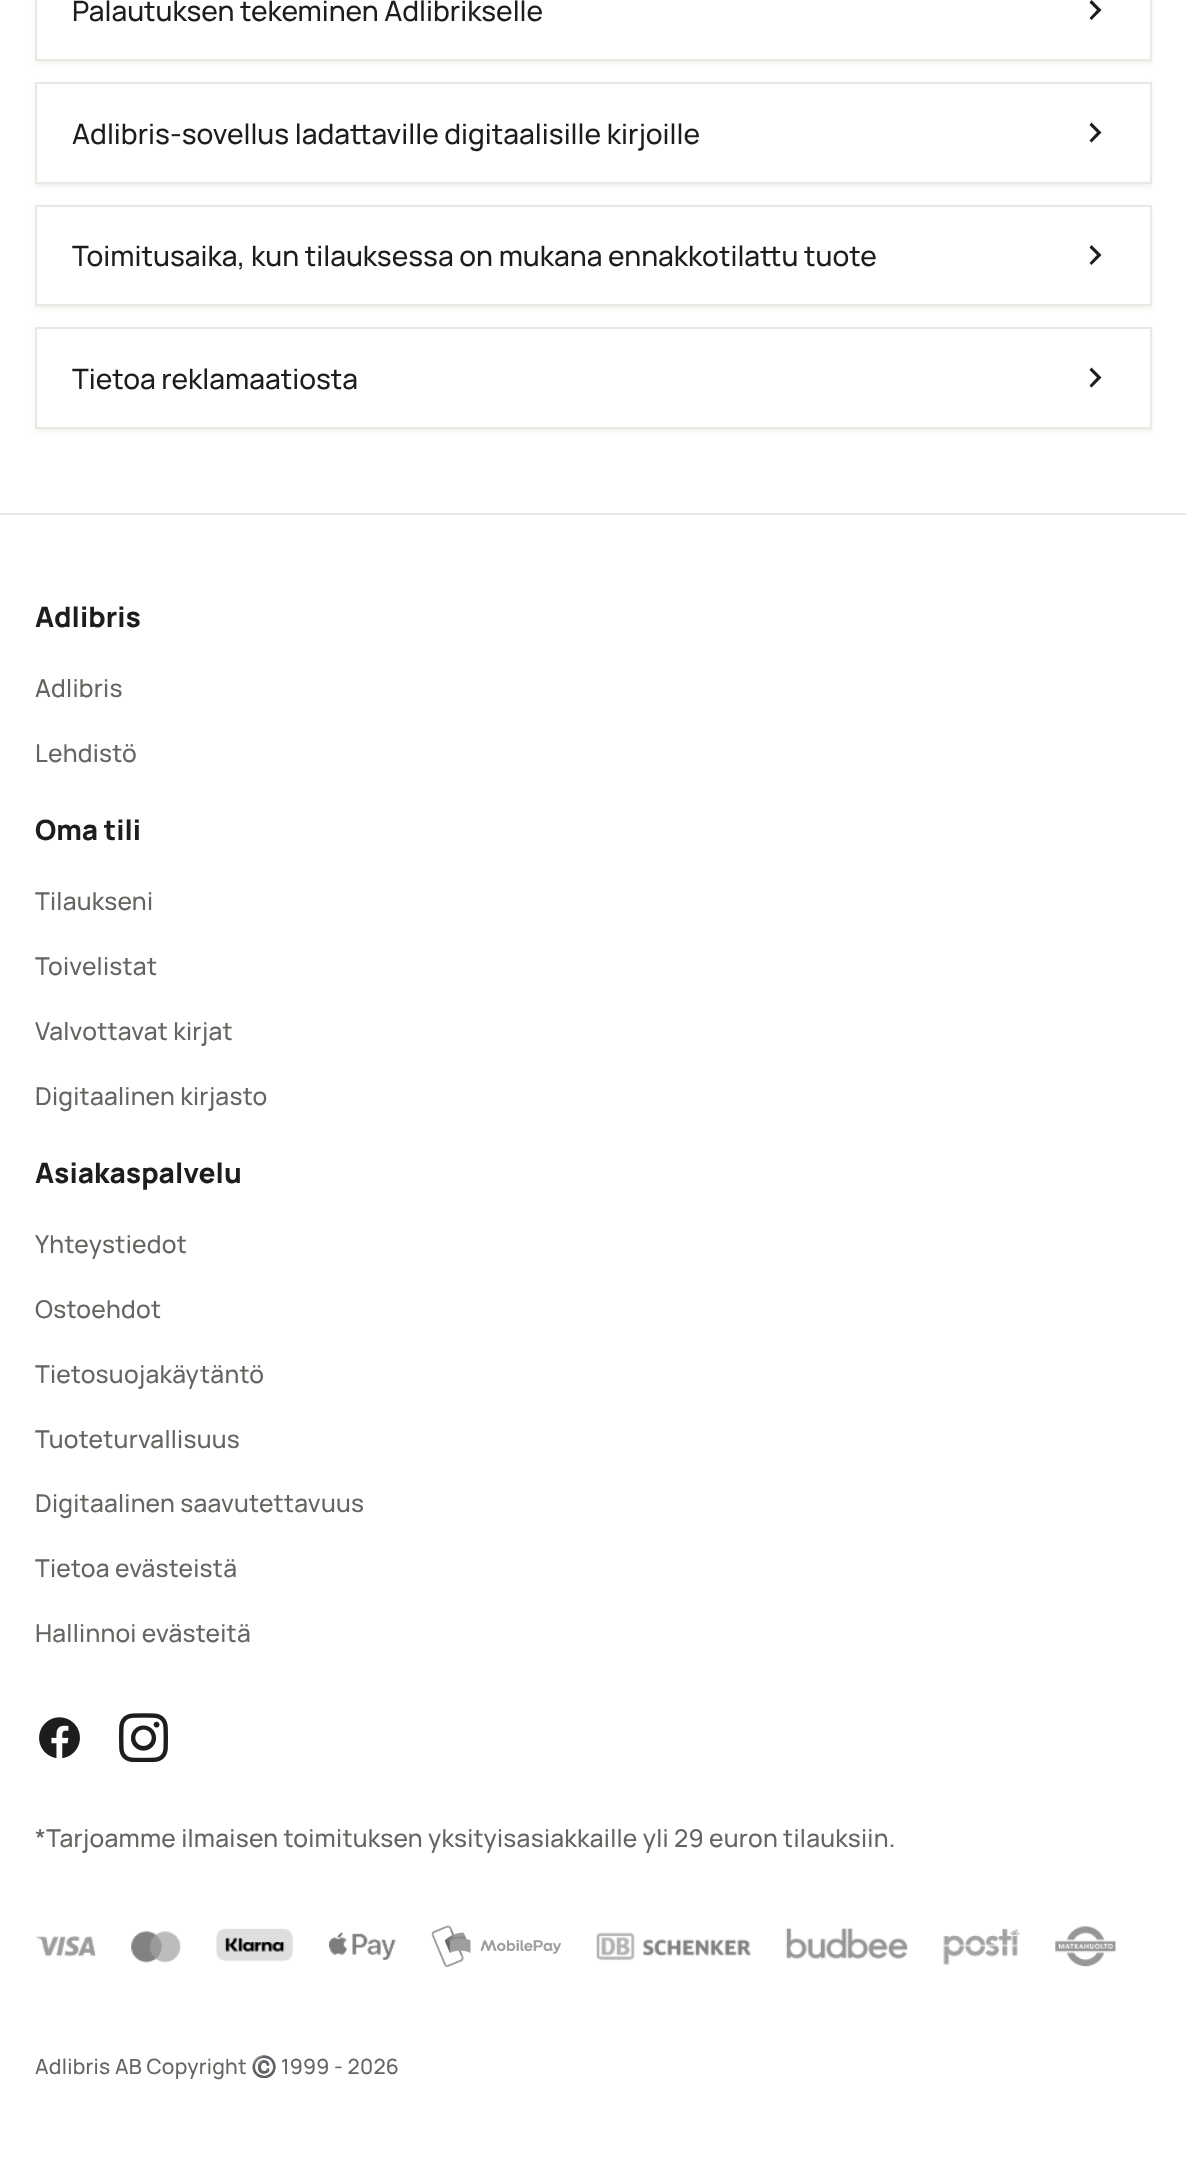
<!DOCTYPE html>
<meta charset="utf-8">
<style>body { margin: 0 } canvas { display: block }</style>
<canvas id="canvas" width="1186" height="2166"></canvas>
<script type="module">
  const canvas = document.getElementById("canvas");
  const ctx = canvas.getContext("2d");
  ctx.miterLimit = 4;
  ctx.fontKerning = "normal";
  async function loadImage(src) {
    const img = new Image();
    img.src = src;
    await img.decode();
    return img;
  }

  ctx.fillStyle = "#ffffff";
  ctx.fillRect(0, 0, 1186, 2166);
  ctx.fillStyle = "#f0eee9";
  ctx.filter = "blur(2.5px)";
  ctx.beginPath();
  ctx.rect(35, -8, 1117, 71);
  ctx.fill();
  ctx.filter = "none";
  ctx.fillStyle = "#ffffff";
  ctx.beginPath();
  ctx.rect(36, -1, 1115, 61);
  ctx.fill();
  ctx.strokeStyle = "#e9e8e4";
  ctx.lineWidth = 2;
  ctx.stroke();
  ctx.font = "500 28px Manrope";
  ctx.fillStyle = "#1d1d1b";
  ctx.fillText("Palautuksen tekeminen Adlibrikselle", 72, 21);
  ctx.beginPath();
  ctx.moveTo(1101.5, 10);
  ctx.lineTo(1091.5, 0);
  ctx.lineTo(1089.5, 2.5);
  ctx.lineTo(1097, 10);
  ctx.lineTo(1089.5, 18);
  ctx.lineTo(1091.5, 20);
  ctx.closePath();
  ctx.fill();
  ctx.fillStyle = "#f0eee9";
  ctx.filter = "blur(2.5px)";
  ctx.beginPath();
  ctx.rect(35, 84, 1117, 102);
  ctx.fill();
  ctx.filter = "none";
  ctx.fillStyle = "#ffffff";
  ctx.beginPath();
  ctx.rect(36, 83, 1115, 100);
  ctx.fill();
  ctx.stroke();
  ctx.fillStyle = "#1d1d1b";
  ctx.fillText("Adlibris-sovellus ladattaville digitaalisille kirjoille", 72, 144);
  ctx.beginPath();
  ctx.moveTo(1101.5, 132.5);
  ctx.lineTo(1091.5, 122.5);
  ctx.lineTo(1089.5, 125);
  ctx.lineTo(1097, 132.5);
  ctx.lineTo(1089.5, 140.5);
  ctx.lineTo(1091.5, 142.5);
  ctx.closePath();
  ctx.fill();
  ctx.fillStyle = "#f0eee9";
  ctx.filter = "blur(2.5px)";
  ctx.beginPath();
  ctx.rect(35, 207, 1117, 101);
  ctx.fill();
  ctx.filter = "none";
  ctx.fillStyle = "#ffffff";
  ctx.beginPath();
  ctx.rect(36, 206, 1115, 99);
  ctx.fill();
  ctx.stroke();
  ctx.fillStyle = "#1d1d1b";
  ctx.fillText("Toimitusaika, kun tilauksessa on mukana ennakkotilattu tuote", 72, 266);
  ctx.beginPath();
  ctx.moveTo(1101.5, 255);
  ctx.lineTo(1091.5, 245);
  ctx.lineTo(1089.5, 247.5);
  ctx.lineTo(1097, 255);
  ctx.lineTo(1089.5, 263);
  ctx.lineTo(1091.5, 265);
  ctx.closePath();
  ctx.fill();
  ctx.fillStyle = "#f0eee9";
  ctx.filter = "blur(2.5px)";
  ctx.beginPath();
  ctx.rect(35, 329, 1117, 102);
  ctx.fill();
  ctx.filter = "none";
  ctx.fillStyle = "#ffffff";
  ctx.beginPath();
  ctx.rect(36, 328, 1115, 100);
  ctx.fill();
  ctx.stroke();
  ctx.fillStyle = "#1d1d1b";
  ctx.fillText("Tietoa reklamaatiosta", 72, 389);
  ctx.beginPath();
  ctx.moveTo(1101.5, 377.5);
  ctx.lineTo(1091.5, 367.5);
  ctx.lineTo(1089.5, 370);
  ctx.lineTo(1097, 377.5);
  ctx.lineTo(1089.5, 385.5);
  ctx.lineTo(1091.5, 387.5);
  ctx.closePath();
  ctx.fill();
  ctx.fillStyle = "#e9e8e4";
  ctx.fillRect(0, 513, 1186, 2);
  ctx.font = "800 28px Manrope";
  ctx.fillStyle = "#1d1d1b";
  ctx.fillText("Adlibris", 35, 627);
  ctx.letterSpacing = "0.25px";
  ctx.font = "500 24.5px Manrope";
  ctx.fillStyle = "#656460";
  ctx.fillText("Adlibris", 35, 697);
  ctx.fillText("Lehdistö", 35, 762);
  ctx.letterSpacing = "0px";
  ctx.font = "800 28px Manrope";
  ctx.fillStyle = "#1d1d1b";
  ctx.fillText("Oma tili", 35, 840);
  ctx.letterSpacing = "0.25px";
  ctx.font = "500 24.5px Manrope";
  ctx.fillStyle = "#656460";
  ctx.fillText("Tilaukseni", 35, 910);
  ctx.fillText("Toivelistat", 35, 975);
  ctx.fillText("Valvottavat kirjat", 35, 1040);
  ctx.fillText("Digitaalinen kirjasto", 35, 1105);
  ctx.letterSpacing = "0px";
  ctx.font = "800 28px Manrope";
  ctx.fillStyle = "#1d1d1b";
  ctx.fillText("Asiakaspalvelu", 35, 1183);
  ctx.letterSpacing = "0.25px";
  ctx.font = "500 24.5px Manrope";
  ctx.fillStyle = "#656460";
  ctx.fillText("Yhteystiedot", 35, 1253);
  ctx.fillText("Ostoehdot", 35, 1318);
  ctx.fillText("Tietosuojakäytäntö", 35, 1383);
  ctx.fillText("Tuoteturvallisuus", 35, 1448);
  ctx.fillText("Digitaalinen saavutettavuus", 35, 1512);
  ctx.fillText("Tietoa evästeistä", 35, 1577);
  ctx.fillText("Hallinnoi evästeitä", 35, 1642);
  ctx.drawImage(await loadImage("img1.png"), 39, 1717, 41, 42);
  ctx.drawImage(await loadImage("img2.png"), 119, 1713, 49, 49);
  ctx.fillText("*Tarjoamme ilmaisen toimituksen yksityisasiakkaille yli 29 euron tilauksiin.", 35, 1847);
  ctx.drawImage(await loadImage("img3.png"), 36, 1936, 60, 21);
  ctx.drawImage(await loadImage("img4.png"), 131, 1931, 50, 32);
  ctx.drawImage(await loadImage("img5.png"), 216, 1928, 77, 34);
  ctx.drawImage(await loadImage("img6.png"), 329, 1932, 67, 28);
  ctx.drawImage(await loadImage("img7.png"), 431, 1925, 130, 43);
  ctx.drawImage(await loadImage("img8.png"), 596, 1932, 155, 29);
  ctx.drawImage(await loadImage("img9.png"), 785, 1927, 123, 32);
  ctx.drawImage(await loadImage("img10.png"), 943, 1928, 77, 37);
  ctx.drawImage(await loadImage("img11.png"), 1055, 1926, 62, 41);
  ctx.font = "500 21px Manrope";
  ctx.fillText("Adlibris AB Copyright", 35, 2074);
  ctx.font = "21px Noto Color Emoji";
  ctx.fillText("©️", 251, 2074);
  ctx.font = "500 21px Manrope";
  ctx.fillText("1999 - 2026", 281, 2074);
</script>
